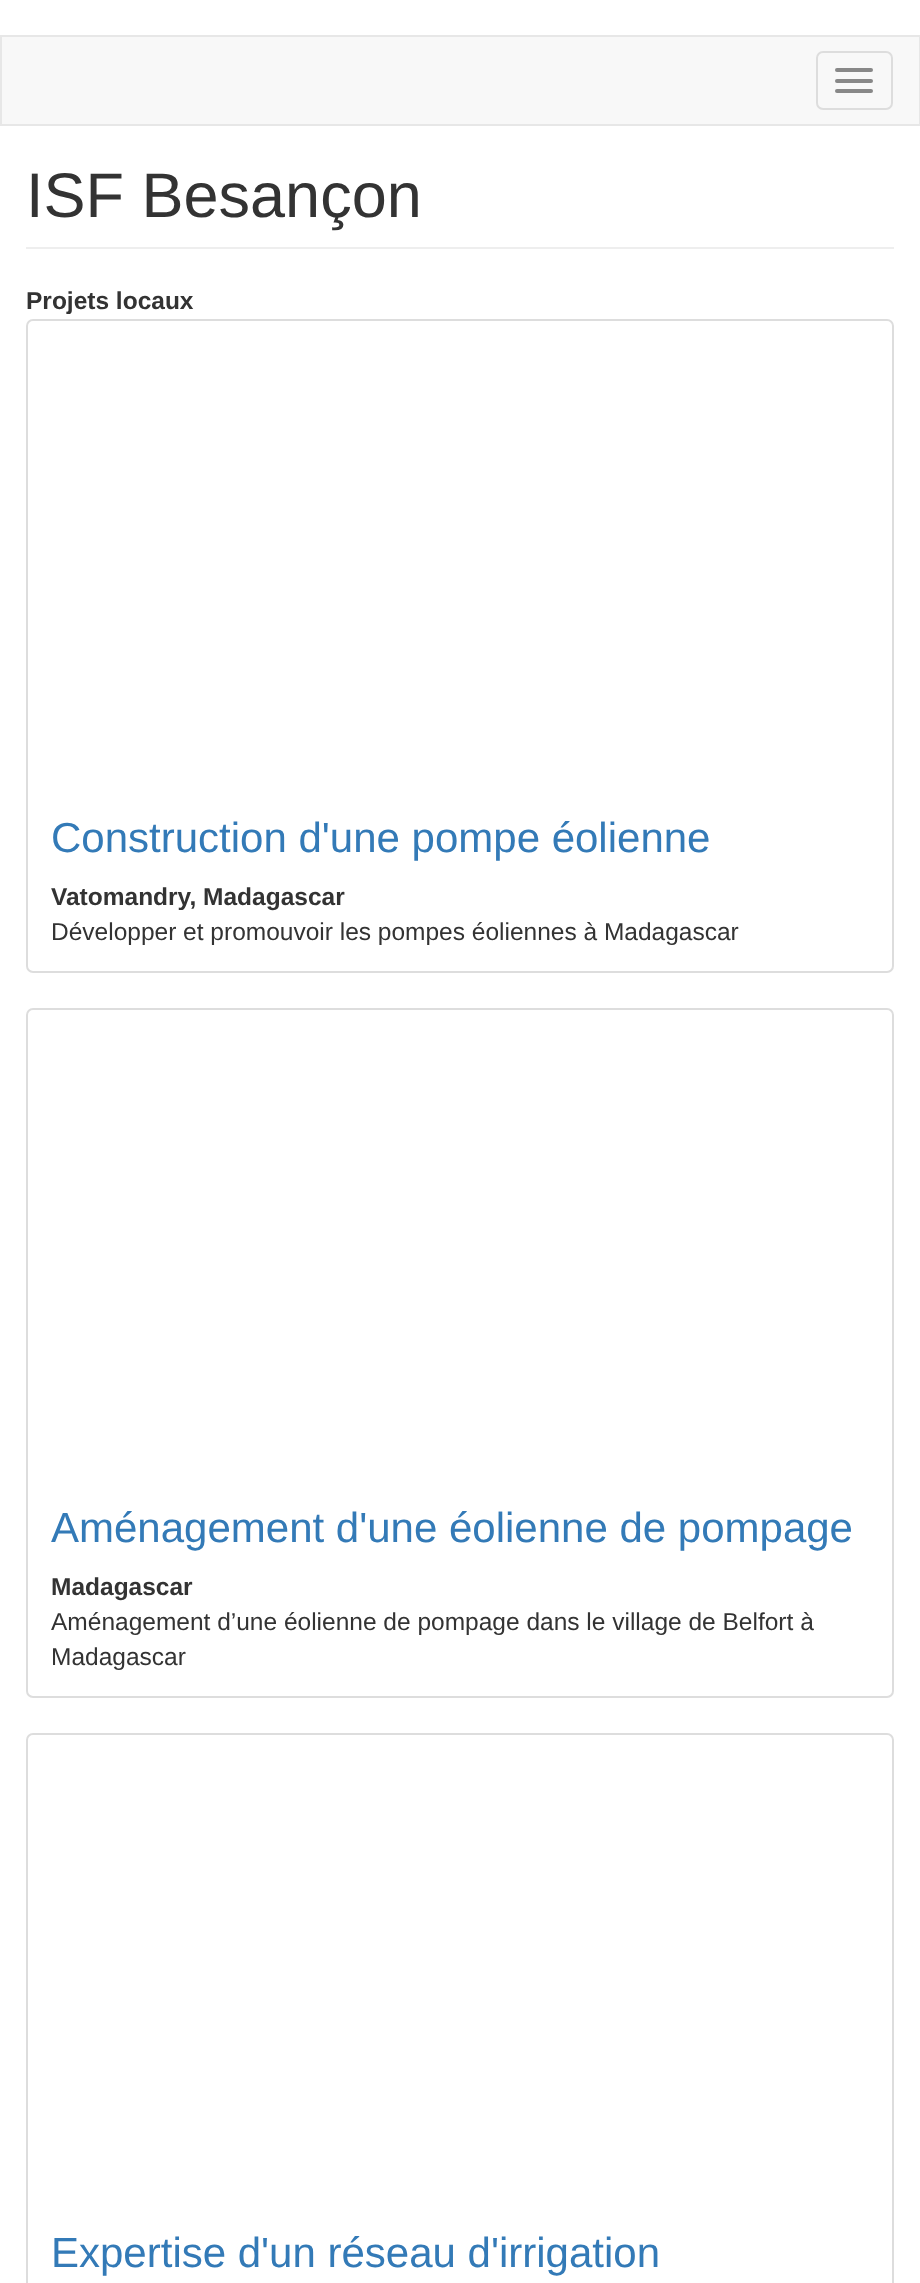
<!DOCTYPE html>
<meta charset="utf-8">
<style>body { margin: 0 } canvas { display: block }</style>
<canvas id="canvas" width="920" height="2283"></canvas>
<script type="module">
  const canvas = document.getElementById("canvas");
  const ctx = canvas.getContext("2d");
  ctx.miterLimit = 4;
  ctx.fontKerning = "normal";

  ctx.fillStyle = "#ffffff";
  ctx.fillRect(0, 0, 920, 2283);
  ctx.fillStyle = "#f8f8f8";
  ctx.beginPath();
  ctx.rect(1, 36, 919, 89);
  ctx.fill();
  ctx.strokeStyle = "#e7e7e7";
  ctx.lineWidth = 2;
  ctx.stroke();
  ctx.beginPath();
  ctx.roundRect(817, 52, 75, 57, 6);
  ctx.strokeStyle = "#dddddd";
  ctx.stroke();
  ctx.fillStyle = "#888888";
  ctx.beginPath();
  ctx.roundRect(835, 68, 38, 4, 2);
  ctx.fill();
  ctx.beginPath();
  ctx.roundRect(835, 79, 38, 4, 2);
  ctx.fill();
  ctx.beginPath();
  ctx.roundRect(835, 89, 38, 4, 2);
  ctx.fill();
  ctx.fillStyle = "#eeeeee";
  ctx.fillRect(26, 247, 868, 2);
  ctx.font = "63px Liberation Sans";
  ctx.fillStyle = "#333333";
  ctx.fillText("ISF Besançon", 26, 217);
  ctx.font = "bold 24.5px Liberation Sans";
  ctx.fillText("Projets locaux", 26, 309);
  ctx.beginPath();
  ctx.roundRect(27, 320, 866, 652, 6);
  ctx.stroke();
  ctx.font = "42px Liberation Sans";
  ctx.fillStyle = "#337ab7";
  ctx.fillText("Construction d'une pompe éolienne", 51, 852);
  ctx.font = "bold 24.5px Liberation Sans";
  ctx.fillStyle = "#333333";
  ctx.fillText("Vatomandry, Madagascar", 51, 905);
  ctx.font = "24.5px Liberation Sans";
  ctx.fillText("Développer et promouvoir les pompes éoliennes à Madagascar", 51, 940);
  ctx.beginPath();
  ctx.roundRect(27, 1009, 866, 688, 6);
  ctx.stroke();
  ctx.font = "42px Liberation Sans";
  ctx.fillStyle = "#337ab7";
  ctx.fillText("Aménagement d'une éolienne de pompage", 51, 1542);
  ctx.font = "bold 24.5px Liberation Sans";
  ctx.fillStyle = "#333333";
  ctx.fillText("Madagascar", 51, 1595);
  ctx.font = "24.5px Liberation Sans";
  ctx.fillText("Aménagement d’une éolienne de pompage dans le village de Belfort à", 51, 1630);
  ctx.fillText("Madagascar", 51, 1665);
  ctx.beginPath();
  ctx.roundRect(27, 1734, 866, 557, 6);
  ctx.stroke();
  ctx.font = "42px Liberation Sans";
  ctx.fillStyle = "#337ab7";
  ctx.fillText("Expertise d'un réseau d'irrigation", 51, 2267);
</script>
